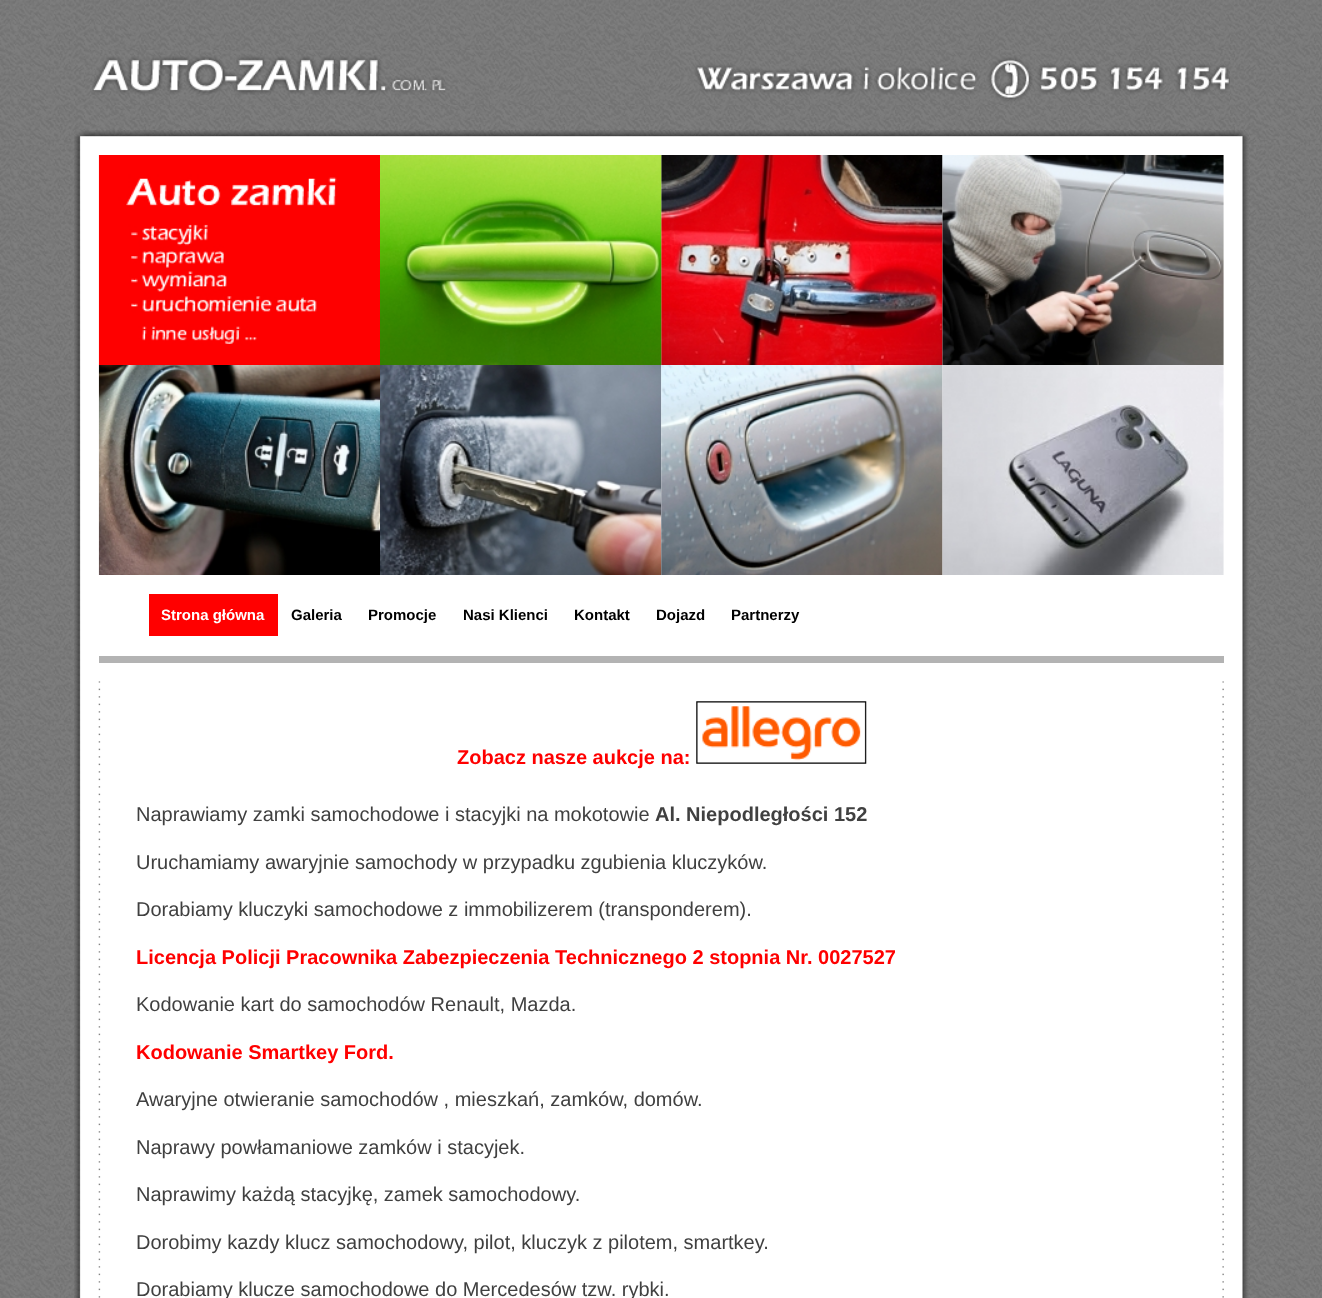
<!DOCTYPE html>
<meta charset="utf-8">
<style>body { margin: 0 } canvas { display: block }</style>
<canvas id="canvas" width="1322" height="1298"></canvas>
<script type="module">
  const canvas = document.getElementById("canvas");
  const ctx = canvas.getContext("2d");
  ctx.miterLimit = 4;
  ctx.fontKerning = "normal";
  async function loadImage(src) {
    const img = new Image();
    img.src = src;
    await img.decode();
    return img;
  }

  ctx.fillStyle = "#ffffff";
  ctx.fillRect(0, 0, 1322, 1298);
  ctx.drawImage(await loadImage("img1.png"), 0, 0, 1322, 1298);
  ctx.drawImage(await loadImage("img2.png"), 92, 50, 1138, 55);
  ctx.drawImage(await loadImage("img3.png"), 74, 130, 1175, 7);
  ctx.drawImage(await loadImage("img4.png"), 74, 136, 1175, 1162);
  ctx.drawImage(await loadImage("img5.png"), 98, 155, 282, 210);
  ctx.drawImage(await loadImage("img7.png"), 661, 155, 282, 210);
  ctx.drawImage(await loadImage("img6.png"), 380, 155, 282, 210);
  ctx.drawImage(await loadImage("img8.png"), 942, 155, 282, 210);
  ctx.drawImage(await loadImage("img9.png"), 98, 365, 282, 210);
  ctx.drawImage(await loadImage("img10.png"), 380, 365, 282, 210);
  ctx.drawImage(await loadImage("img11.png"), 661, 365, 282, 210);
  ctx.drawImage(await loadImage("img12.png"), 942, 365, 282, 210);
  ctx.fillStyle = "#ff0000";
  ctx.fillRect(149, 594, 129, 42);
  ctx.font = "bold 15px Liberation Sans";
  ctx.fillStyle = "#ffffff";
  ctx.fillText("Strona główna", 161, 620);
  ctx.fillStyle = "#000000";
  ctx.fillText("Galeria", 291, 620);
  ctx.fillText("Promocje", 368, 620);
  ctx.fillText("Nasi Klienci", 463, 620);
  ctx.fillText("Kontakt", 574, 620);
  ctx.fillText("Dojazd", 656, 620);
  ctx.fillText("Partnerzy", 731, 620);
  ctx.fillStyle = "#b3b3b3";
  ctx.fillRect(99, 656, 1125, 7);
  ctx.drawImage(await loadImage("img13.png"), 98, 681, 1126, 617);
  ctx.font = "bold 20px Liberation Sans";
  ctx.fillStyle = "#ff0000";
  ctx.fillText("Zobacz nasze aukcje na:", 457, 764);
  ctx.drawImage(await loadImage("img14.png"), 696, 701, 171, 63);
  ctx.font = "20px Liberation Sans";
  ctx.fillStyle = "#404040";
  ctx.fillText("Naprawiamy zamki samochodowe i stacyjki na mokotowie", 136, 821);
  ctx.font = "bold 20px Liberation Sans";
  ctx.fillText("Al. Niepodległości 152", 655, 821);
  ctx.font = "20px Liberation Sans";
  ctx.fillText("Uruchamiamy awaryjnie samochody w przypadku zgubienia kluczyków.", 136, 869);
  ctx.fillText("Dorabiamy kluczyki samochodowe z immobilizerem (transponderem).", 136, 916);
  ctx.font = "bold 20px Liberation Sans";
  ctx.fillStyle = "#ff0000";
  ctx.fillText("Licencja Policji Pracownika Zabezpieczenia Technicznego 2 stopnia Nr. 0027527", 136, 964);
  ctx.font = "20px Liberation Sans";
  ctx.fillStyle = "#404040";
  ctx.fillText("Kodowanie kart do samochodów Renault, Mazda.", 136, 1011);
  ctx.font = "bold 20px Liberation Sans";
  ctx.fillStyle = "#ff0000";
  ctx.fillText("Kodowanie Smartkey Ford.", 136, 1059);
  ctx.font = "20px Liberation Sans";
  ctx.fillStyle = "#404040";
  ctx.fillText("Awaryjne otwieranie samochodów , mieszkań, zamków, domów.", 136, 1106);
  ctx.fillText("Naprawy powłamaniowe zamków i stacyjek.", 136, 1154);
  ctx.fillText("Naprawimy każdą stacyjkę, zamek samochodowy.", 136, 1201);
  ctx.fillText("Dorobimy kazdy klucz samochodowy, pilot, kluczyk z pilotem, smartkey.", 136, 1249);
  ctx.fillText("Dorabiamy klucze samochodowe do Mercedesów tzw. rybki.", 136, 1296);
</script>
